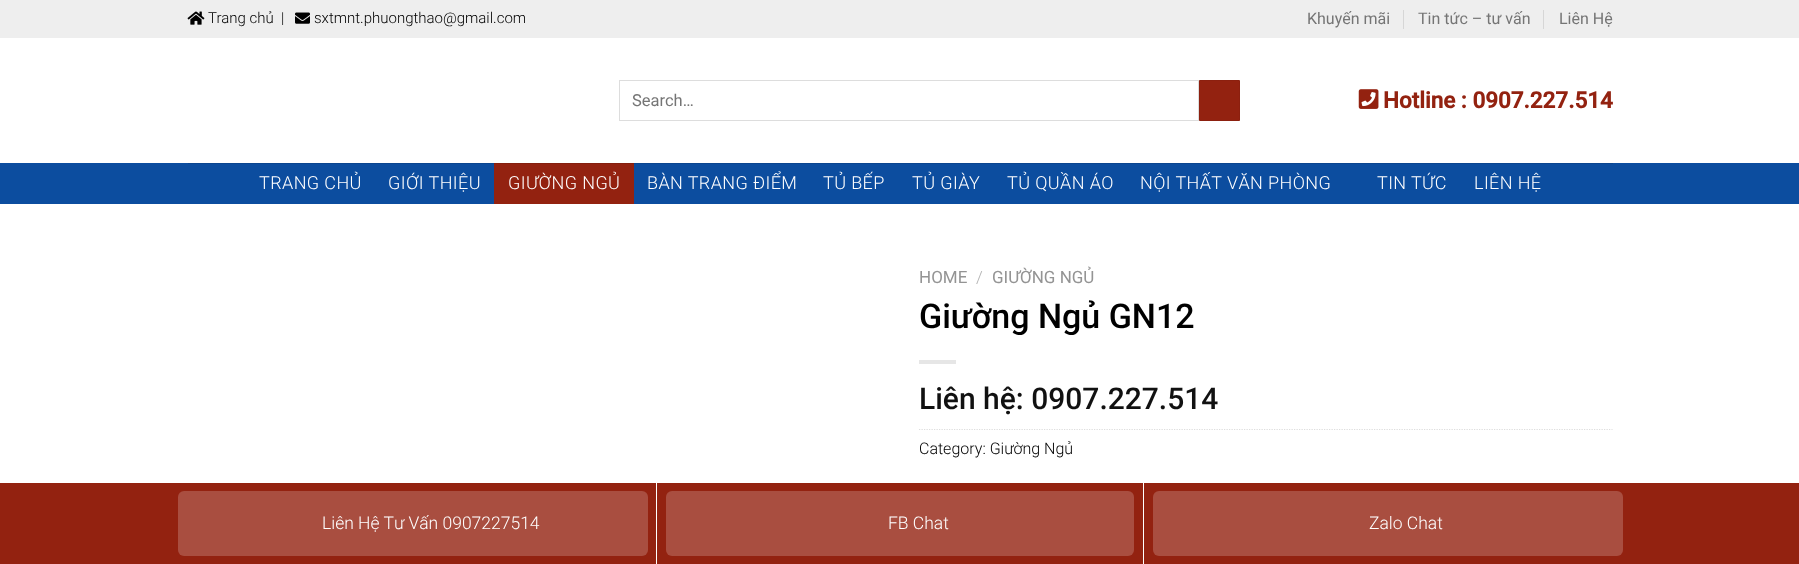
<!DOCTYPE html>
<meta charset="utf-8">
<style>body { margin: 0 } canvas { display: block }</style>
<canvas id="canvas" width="1799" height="564"></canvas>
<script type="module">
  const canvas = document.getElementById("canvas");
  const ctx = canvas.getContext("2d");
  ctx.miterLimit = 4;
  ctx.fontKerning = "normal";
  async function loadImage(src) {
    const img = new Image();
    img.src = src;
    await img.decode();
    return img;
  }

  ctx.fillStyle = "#ffffff";
  ctx.fillRect(0, 0, 1799, 564);
  ctx.fillStyle = "#eeeeee";
  ctx.fillRect(0, 0, 1799, 38);
  ctx.drawImage(await loadImage("img1.png"), 187, 11, 18, 14);
  ctx.font = "300 15px Roboto";
  ctx.fillStyle = "#000000";
  ctx.fillText("Trang chủ", 208, 23);
  ctx.fillText("|", 281, 23);
  ctx.drawImage(await loadImage("img2.png"), 295, 12, 15, 12);
  ctx.fillText("sxtmnt.phuongthao@gmail.com", 314, 23);
  ctx.font = "16px Roboto";
  ctx.fillStyle = "#757575";
  ctx.fillText("Khuyến mãi", 1307, 24);
  ctx.fillStyle = "#d6d6d6";
  ctx.fillRect(1403, 10, 1, 19);
  ctx.fillStyle = "#757575";
  ctx.fillText("Tin tức – tư vấn", 1418, 24);
  ctx.fillStyle = "#d6d6d6";
  ctx.fillRect(1543, 10, 1, 19);
  ctx.fillStyle = "#757575";
  ctx.fillText("Liên Hệ", 1559, 24);
  ctx.strokeStyle = "#dddddd";
  ctx.strokeRect(619.5, 80.5, 579, 40);
  ctx.font = "16.5px Roboto";
  ctx.fillText("Search…", 632, 106);
  ctx.fillStyle = "#932210";
  ctx.beginPath();
  ctx.rect(1199.5, 80.5, 40, 40);
  ctx.fill();
  ctx.strokeStyle = "#8c200f";
  ctx.stroke();
  ctx.drawImage(await loadImage("img3.png"), 1358, 89, 21, 20);
  ctx.font = "bold 22.5px Roboto";
  ctx.fillText("Hotline : 0907.227.514", 1383, 108);
  ctx.fillStyle = "#0c4d9f";
  ctx.fillRect(0, 163, 1799, 41);
  ctx.fillStyle = "#0b458f";
  ctx.fillRect(188, 163, 1425, 1);
  ctx.letterSpacing = "0.4px";
  ctx.font = "300 18px Roboto";
  ctx.fillStyle = "#ffffff";
  ctx.fillText("TRANG CHỦ", 259, 189);
  ctx.fillText("GIỚI THIỆU", 388, 189);
  ctx.fillStyle = "#932210";
  ctx.fillRect(494, 164, 140, 40);
  ctx.fillStyle = "#841f0e";
  ctx.fillRect(494, 163, 140, 1);
  ctx.fillStyle = "#ffffff";
  ctx.fillText("GIƯỜNG NGỦ", 508, 189);
  ctx.fillText("BÀN TRANG ĐIỂM", 647, 189);
  ctx.fillText("TỦ BẾP", 823, 189);
  ctx.fillText("TỦ GIÀY", 912, 189);
  ctx.fillText("TỦ QUẦN ÁO", 1007, 189);
  ctx.fillText("NỘI THẤT VĂN PHÒNG", 1140, 189);
  ctx.fillText("TIN TỨC", 1377, 189);
  ctx.fillText("LIÊN HỆ", 1474, 189);
  ctx.letterSpacing = "0px";
  ctx.font = "17px Roboto";
  ctx.fillStyle = "#949494";
  ctx.fillText("HOME", 919, 283);
  ctx.font = "300 17px Roboto";
  ctx.fillStyle = "#b2b2b2";
  ctx.fillText("/", 976, 283);
  ctx.font = "17px Roboto";
  ctx.fillStyle = "#949494";
  ctx.fillText("GIƯỜNG NGỦ", 992, 283);
  ctx.font = "500 34px Roboto";
  ctx.fillStyle = "#000000";
  ctx.fillText("Giường Ngủ GN12", 919, 328);
  ctx.fillStyle = "#e6e6e6";
  ctx.fillRect(919, 360, 37, 4);
  ctx.font = "500 30px Roboto";
  ctx.fillStyle = "#111111";
  ctx.fillText("Liên hệ: 0907.227.514", 919, 409);
  ctx.beginPath();
  ctx.moveTo(919, 429.5);
  ctx.lineTo(1612.5, 429.5);
  ctx.strokeStyle = "#dddddd";
  ctx.lineWidth = 1.2;
  ctx.setLineDash([1.25, 1.25]);
  ctx.stroke();
  ctx.font = "300 16px Roboto";
  ctx.fillStyle = "#000000";
  ctx.fillText("Category: Giường Ngủ", 919, 454);
  ctx.fillStyle = "#932210";
  ctx.fillRect(0, 483, 1799, 81);
  ctx.fillStyle = "#a94e40";
  ctx.beginPath();
  ctx.roundRect(178, 491, 470, 65, 6);
  ctx.fill();
  ctx.font = "300 17.5px Roboto";
  ctx.fillStyle = "#ffffff";
  ctx.fillText("Liên Hệ Tư Vấn 0907227514", 322, 529);
  ctx.fillRect(1143, 483, 1, 81);
  ctx.fillRect(656, 483, 1, 81);
  ctx.fillStyle = "#a94e40";
  ctx.beginPath();
  ctx.roundRect(666, 491, 468, 65, 6);
  ctx.fill();
  ctx.fillStyle = "#ffffff";
  ctx.fillText("FB Chat", 888, 529);
  ctx.fillStyle = "#a94e40";
  ctx.beginPath();
  ctx.roundRect(1153, 491, 470, 65, 6);
  ctx.fill();
  ctx.fillStyle = "#ffffff";
  ctx.fillText("Zalo Chat", 1369, 529);
</script>
